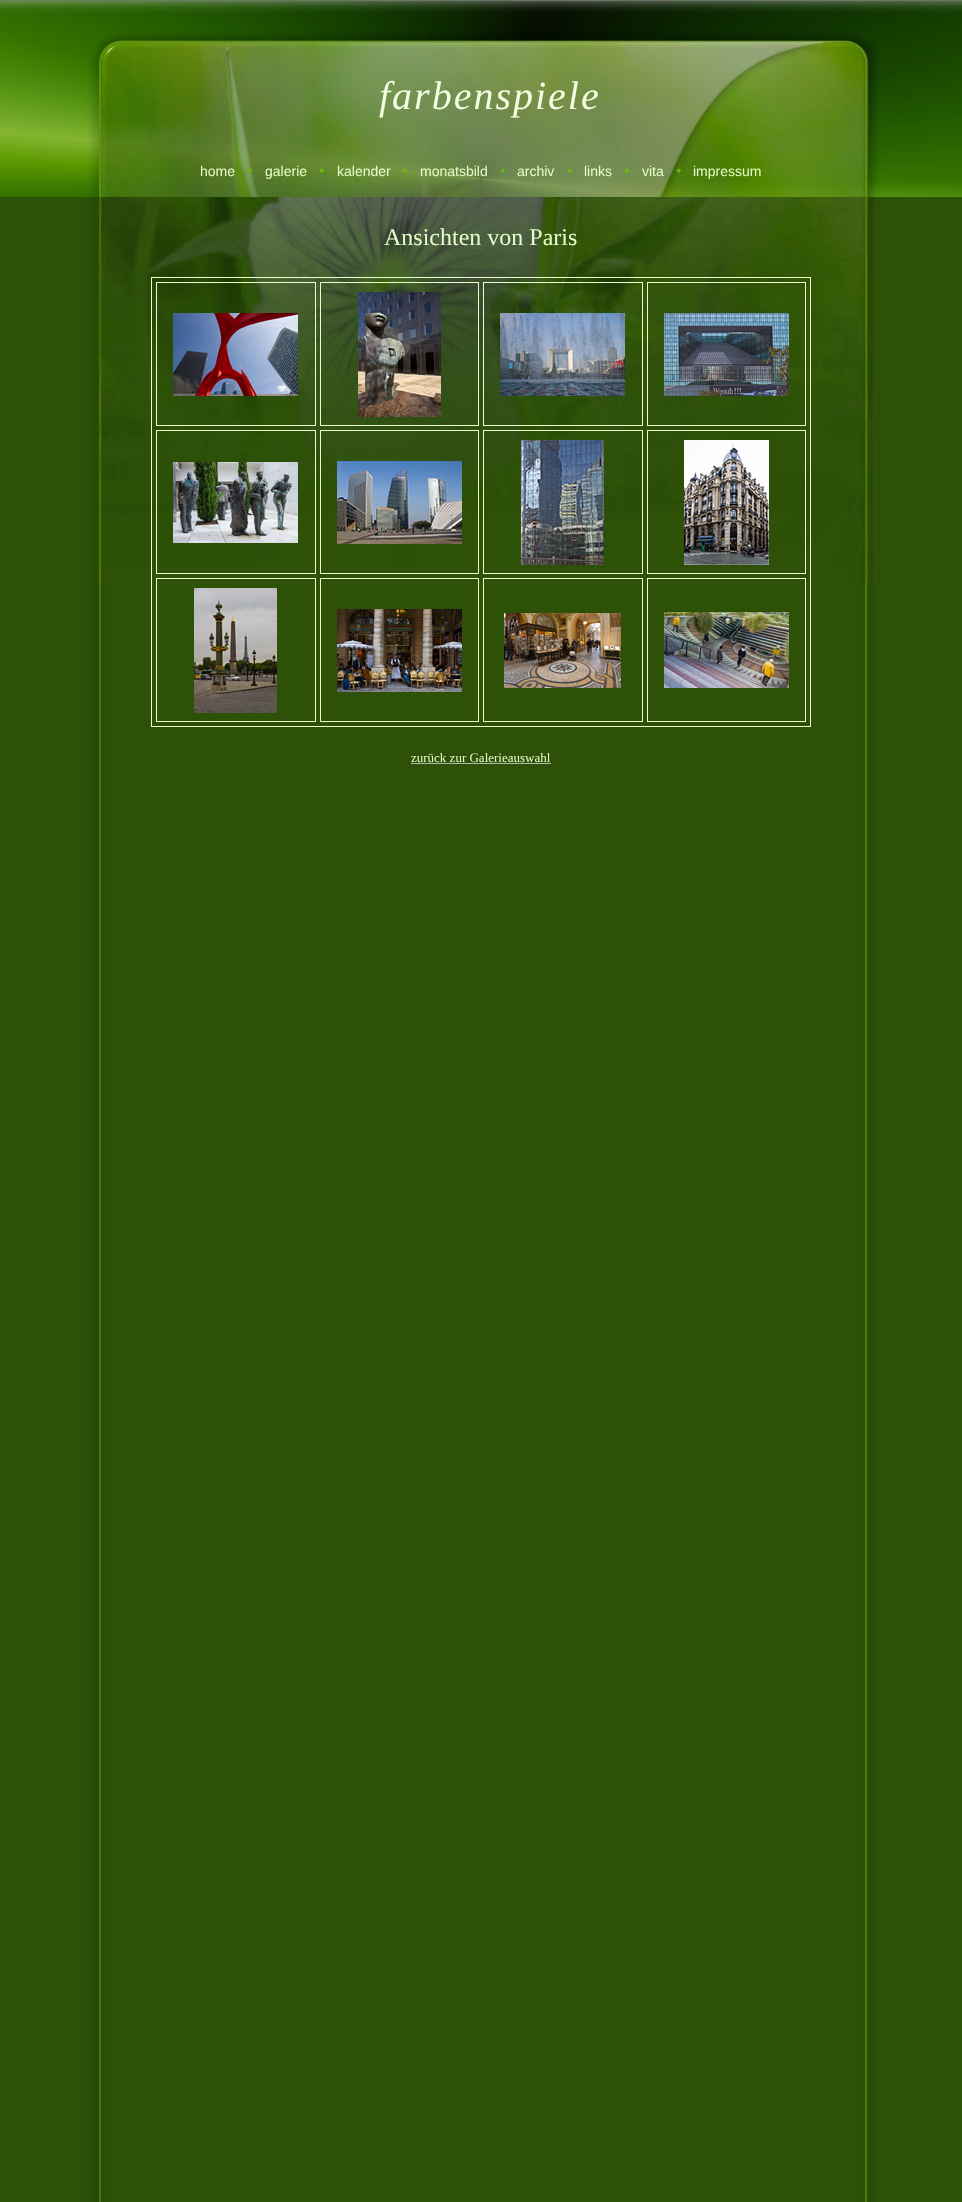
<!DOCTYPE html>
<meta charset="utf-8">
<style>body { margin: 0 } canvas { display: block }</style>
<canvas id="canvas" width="962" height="2202"></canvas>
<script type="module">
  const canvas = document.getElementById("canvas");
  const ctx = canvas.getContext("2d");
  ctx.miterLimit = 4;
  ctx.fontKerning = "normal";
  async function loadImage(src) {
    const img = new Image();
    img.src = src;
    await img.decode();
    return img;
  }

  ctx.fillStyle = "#ffffff";
  ctx.fillRect(0, 0, 962, 2202);
  ctx.drawImage(await loadImage("img1.png"), 0, 197, 962, 2005);
  ctx.drawImage(await loadImage("img2.png"), 0, 0, 962, 197);
  ctx.letterSpacing = "2px";
  ctx.font = "italic 40px Liberation Serif";
  ctx.fillStyle = "#f4ffe1";
  ctx.fillText("farbenspiele", 379, 109);
  ctx.letterSpacing = "0px";
  ctx.font = "14px Liberation Sans";
  ctx.fillStyle = "#e7fecb";
  ctx.fillText("home", 200, 176);
  ctx.font = "16px Liberation Serif";
  ctx.fillStyle = "#6abc05";
  ctx.fillText("•", 247, 176);
  ctx.font = "14px Liberation Sans";
  ctx.fillStyle = "#e7fecb";
  ctx.fillText("galerie", 265, 176);
  ctx.font = "16px Liberation Serif";
  ctx.fillStyle = "#6abc05";
  ctx.fillText("•", 319, 176);
  ctx.font = "14px Liberation Sans";
  ctx.fillStyle = "#e7fecb";
  ctx.fillText("kalender", 337, 176);
  ctx.font = "16px Liberation Serif";
  ctx.fillStyle = "#6abc05";
  ctx.fillText("•", 402, 176);
  ctx.font = "14px Liberation Sans";
  ctx.fillStyle = "#e7fecb";
  ctx.fillText("monatsbild", 420, 176);
  ctx.font = "16px Liberation Serif";
  ctx.fillStyle = "#6abc05";
  ctx.fillText("•", 500, 176);
  ctx.font = "14px Liberation Sans";
  ctx.fillStyle = "#e7fecb";
  ctx.fillText("archiv", 517, 176);
  ctx.font = "16px Liberation Serif";
  ctx.fillStyle = "#6abc05";
  ctx.fillText("•", 567, 176);
  ctx.font = "14px Liberation Sans";
  ctx.fillStyle = "#e7fecb";
  ctx.fillText("links", 584, 176);
  ctx.font = "16px Liberation Serif";
  ctx.fillStyle = "#6abc05";
  ctx.fillText("•", 624, 176);
  ctx.font = "14px Liberation Sans";
  ctx.fillStyle = "#e7fecb";
  ctx.fillText("vita", 642, 176);
  ctx.font = "16px Liberation Serif";
  ctx.fillStyle = "#6abc05";
  ctx.fillText("•", 676, 176);
  ctx.font = "14px Liberation Sans";
  ctx.fillStyle = "#e7fecb";
  ctx.fillText("impressum", 693, 176);
  ctx.drawImage(await loadImage("img3.png"), 97, 197, 778, 386);
  ctx.font = "24px Liberation Serif";
  ctx.fillText("Ansichten von Paris", 384, 245);
  ctx.strokeStyle = "#e7fecb";
  ctx.strokeRect(151.5, 277.5, 659, 449);
  ctx.strokeRect(156.5, 282.5, 159, 143);
  ctx.drawImage(await loadImage("img4.png"), 173, 313, 125, 83);
  ctx.strokeRect(320.5, 282.5, 158, 143);
  ctx.drawImage(await loadImage("img5.png"), 358, 292, 83, 125);
  ctx.strokeRect(483.5, 282.5, 159, 143);
  ctx.drawImage(await loadImage("img6.png"), 500, 313, 125, 83);
  ctx.strokeRect(647.5, 282.5, 158, 143);
  ctx.drawImage(await loadImage("img7.png"), 664, 313, 125, 83);
  ctx.strokeRect(156.5, 430.5, 159, 143);
  ctx.drawImage(await loadImage("img8.png"), 173, 462, 125, 81);
  ctx.strokeRect(320.5, 430.5, 158, 143);
  ctx.drawImage(await loadImage("img9.png"), 337, 461, 125, 83);
  ctx.strokeRect(483.5, 430.5, 159, 143);
  ctx.drawImage(await loadImage("img10.png"), 521, 440, 83, 125);
  ctx.strokeRect(647.5, 430.5, 158, 143);
  ctx.drawImage(await loadImage("img11.png"), 684, 440, 85, 125);
  ctx.strokeRect(156.5, 578.5, 159, 143);
  ctx.drawImage(await loadImage("img12.png"), 194, 588, 83, 125);
  ctx.strokeRect(320.5, 578.5, 158, 143);
  ctx.drawImage(await loadImage("img13.png"), 337, 609, 125, 83);
  ctx.strokeRect(483.5, 578.5, 159, 143);
  ctx.drawImage(await loadImage("img14.png"), 504, 613, 117, 75);
  ctx.strokeRect(647.5, 578.5, 158, 143);
  ctx.drawImage(await loadImage("img15.png"), 664, 612, 125, 76);
  ctx.font = "13px Liberation Serif";
  ctx.fillText("zurück zur Galerieauswahl", 411, 762);
  ctx.fillStyle = "#b6b6b6";
  ctx.fillRect(411, 763, 140, 1);
</script>
